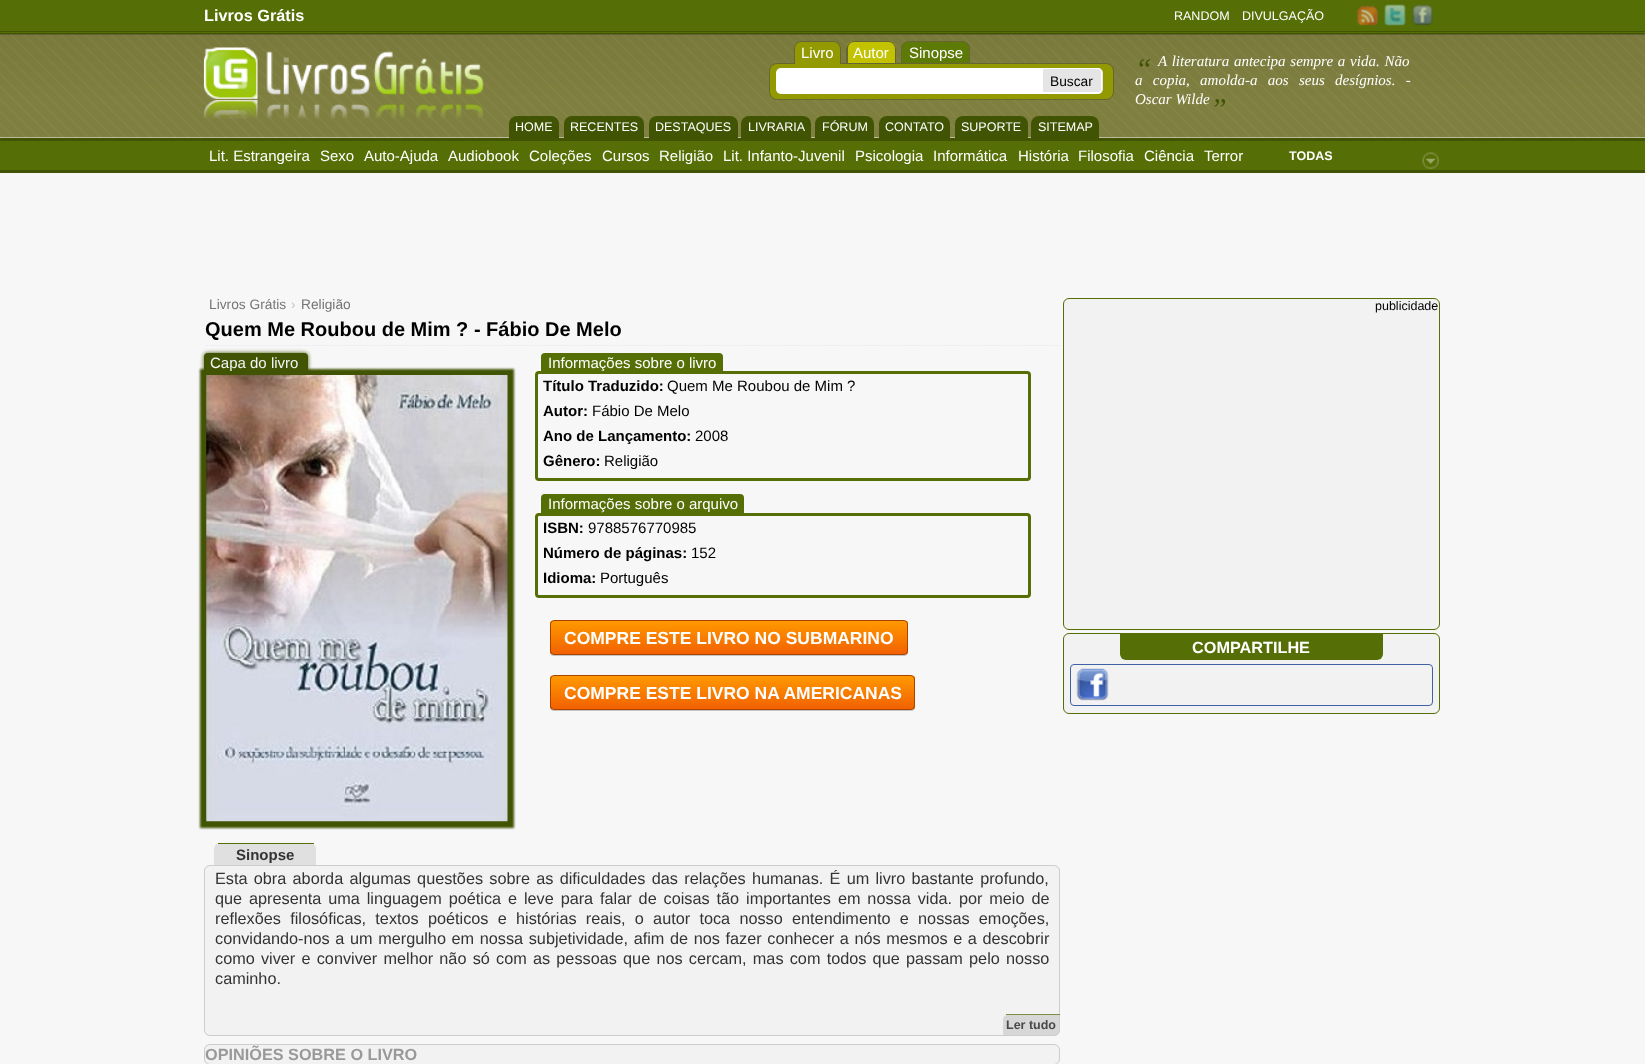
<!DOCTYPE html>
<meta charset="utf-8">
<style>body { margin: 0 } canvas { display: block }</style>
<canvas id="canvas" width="1645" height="1064"></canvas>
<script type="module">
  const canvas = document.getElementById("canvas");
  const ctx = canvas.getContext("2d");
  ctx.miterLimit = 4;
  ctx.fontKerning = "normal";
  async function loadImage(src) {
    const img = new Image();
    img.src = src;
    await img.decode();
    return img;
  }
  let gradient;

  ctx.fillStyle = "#f7f7f7";
  ctx.fillRect(0, 0, 1645, 1064);
  ctx.drawImage(await loadImage("img4.png"), 0, 34, 1645, 104);
  ctx.fillStyle = "rgba(0, 0, 0, 0.2)";
  ctx.filter = "blur(0.5px)";
  ctx.beginPath();
  ctx.rect(0, 3, 1645, 32);
  ctx.fill();
  ctx.filter = "none";
  ctx.fillStyle = "#415404";
  ctx.fillRect(0, 33, 1645, 1);
  ctx.fillStyle = "#556e05";
  ctx.fillRect(0, 0, 1645, 33);
  ctx.fillStyle = "#415404";
  ctx.fillRect(0, 31, 1645, 1);
  ctx.font = "bold 16.25px Liberation Sans";
  ctx.fillStyle = "#ffffff";
  ctx.fillText("Livros Grátis", 204, 21);
  ctx.font = "12.5px Liberation Sans";
  ctx.fillText("RANDOM", 1174, 20);
  ctx.fillText("DIVULGAÇÃO", 1242, 20);
  ctx.drawImage(await loadImage("img1.png"), 1357, 5, 21, 21);
  ctx.drawImage(await loadImage("img2.png"), 1384, 4, 22, 22);
  ctx.drawImage(await loadImage("img3.png"), 1412, 4, 21, 22);
  ctx.drawImage(await loadImage("img5.png"), 203, 47, 281, 72);
  ctx.fillStyle = "#c2c200";
  ctx.beginPath();
  ctx.roundRect(846, 41, 50, 23, [8, 8, 0, 0]);
  ctx.fill();
  ctx.fillStyle = "#666633";
  ctx.beginPath();
  ctx.moveTo(854, 41);
  ctx.lineTo(889, 41);
  ctx.bezierCurveTo(893, 41, 896, 45, 896, 49);
  ctx.lineTo(896, 64);
  ctx.lineTo(846, 64);
  ctx.lineTo(846, 49);
  ctx.bezierCurveTo(846, 45, 850, 41, 854, 41);
  ctx.closePath();
  ctx.moveTo(854, 42);
  ctx.lineTo(889, 42);
  ctx.bezierCurveTo(892, 42, 895, 45, 895, 49);
  ctx.lineTo(895, 64);
  ctx.lineTo(848, 64);
  ctx.lineTo(848, 49);
  ctx.bezierCurveTo(848, 45, 850, 42, 854, 42);
  ctx.closePath();
  ctx.fill("evenodd");
  ctx.fillStyle = "#5e7a06";
  ctx.beginPath();
  ctx.roundRect(901, 41, 69, 23, [8, 8, 0, 0]);
  ctx.fill();
  ctx.fillStyle = "#666633";
  ctx.beginPath();
  ctx.moveTo(909, 41);
  ctx.lineTo(962, 41);
  ctx.bezierCurveTo(967, 41, 970, 45, 970, 49);
  ctx.lineTo(970, 64);
  ctx.lineTo(901, 64);
  ctx.lineTo(901, 49);
  ctx.bezierCurveTo(901, 45, 905, 41, 909, 41);
  ctx.closePath();
  ctx.moveTo(909, 42);
  ctx.lineTo(962, 42);
  ctx.bezierCurveTo(966, 42, 969, 45, 969, 49);
  ctx.lineTo(969, 64);
  ctx.lineTo(902, 64);
  ctx.lineTo(902, 49);
  ctx.bezierCurveTo(902, 45, 905, 42, 909, 42);
  ctx.closePath();
  ctx.fill("evenodd");
  ctx.fillStyle = "#939900";
  ctx.beginPath();
  ctx.roundRect(769.5, 63.5, 344, 36, 7.5);
  ctx.fill();
  ctx.strokeStyle = "#666633";
  ctx.stroke();
  ctx.beginPath();
  ctx.roundRect(794, 41, 47, 23, [8, 8, 0, 0]);
  ctx.fill();
  ctx.fillStyle = "#666633";
  ctx.beginPath();
  ctx.moveTo(801, 41);
  ctx.lineTo(834, 41);
  ctx.bezierCurveTo(838, 41, 841, 45, 841, 49);
  ctx.lineTo(841, 64);
  ctx.lineTo(794, 64);
  ctx.lineTo(794, 49);
  ctx.bezierCurveTo(794, 45, 797, 41, 801, 41);
  ctx.closePath();
  ctx.moveTo(801, 42);
  ctx.lineTo(834, 42);
  ctx.bezierCurveTo(837, 42, 840, 45, 840, 49);
  ctx.lineTo(840, 64);
  ctx.lineTo(795, 64);
  ctx.lineTo(795, 49);
  ctx.bezierCurveTo(795, 45, 798, 42, 801, 42);
  ctx.closePath();
  ctx.fill("evenodd");
  ctx.font = "15px Liberation Sans";
  ctx.fillStyle = "#ffffff";
  ctx.fillText("Livro", 801, 58);
  ctx.fillText("Autor", 853, 58);
  ctx.fillText("Sinopse", 909, 58);
  ctx.beginPath();
  ctx.roundRect(776, 68, 267, 26, [5, 0, 0, 5]);
  ctx.fill();
  ctx.fillStyle = "#e5e5e5";
  ctx.beginPath();
  ctx.roundRect(1043, 68, 60, 26, [0, 5, 5, 0]);
  ctx.fill();
  ctx.fillStyle = "#ffffff";
  ctx.beginPath();
  ctx.moveTo(1042, 68);
  ctx.lineTo(1098, 68);
  ctx.bezierCurveTo(1100, 68, 1102, 70, 1102, 72);
  ctx.lineTo(1102, 89);
  ctx.bezierCurveTo(1102, 92, 1100, 94, 1098, 94);
  ctx.lineTo(1042, 94);
  ctx.closePath();
  ctx.moveTo(1042, 69);
  ctx.lineTo(1098, 69);
  ctx.bezierCurveTo(1100, 69, 1101, 70, 1101, 72);
  ctx.lineTo(1101, 89);
  ctx.bezierCurveTo(1101, 91, 1100, 92, 1098, 92);
  ctx.lineTo(1042, 92);
  ctx.closePath();
  ctx.fill("evenodd");
  ctx.font = "13.75px Liberation Sans";
  ctx.fillStyle = "#000000";
  ctx.fillText("Buscar", 1050, 86);
  ctx.font = "italic 30px Liberation Serif";
  ctx.fillStyle = "#415404";
  ctx.fillText("“", 1135, 79);
  ctx.wordSpacing = "1px";
  ctx.font = "italic 15px Liberation Serif";
  ctx.fillStyle = "#ffffff";
  ctx.fillText("A literatura antecipa sempre a vida. Não", 1158, 66);
  ctx.wordSpacing = "6.5px";
  ctx.fillText("a copia, amolda-a aos seus desígnios. -", 1135, 85);
  ctx.wordSpacing = "0px";
  ctx.fillText("Oscar Wilde", 1135, 104);
  ctx.font = "italic 30px Liberation Serif";
  ctx.fillStyle = "#415404";
  ctx.fillText("”", 1210, 119);
  ctx.beginPath();
  ctx.roundRect(509, 116, 50, 22, [8, 8, 0, 0]);
  ctx.fill();
  ctx.font = "12.5px Liberation Sans";
  ctx.fillStyle = "#ffffff";
  ctx.fillText("HOME", 515, 131);
  ctx.fillStyle = "#415404";
  ctx.beginPath();
  ctx.roundRect(564, 116, 80, 22, [8, 8, 0, 0]);
  ctx.fill();
  ctx.fillStyle = "#ffffff";
  ctx.fillText("RECENTES", 570, 131);
  ctx.fillStyle = "#415404";
  ctx.beginPath();
  ctx.roundRect(649, 116, 89, 22, [8, 8, 0, 0]);
  ctx.fill();
  ctx.fillStyle = "#ffffff";
  ctx.fillText("DESTAQUES", 655, 131);
  ctx.fillStyle = "#415404";
  ctx.beginPath();
  ctx.roundRect(741, 116, 70, 22, [8, 8, 0, 0]);
  ctx.fill();
  ctx.fillStyle = "#ffffff";
  ctx.fillText("LIVRARIA", 748, 131);
  ctx.fillStyle = "#415404";
  ctx.beginPath();
  ctx.roundRect(815, 116, 59, 22, [8, 8, 0, 0]);
  ctx.fill();
  ctx.fillStyle = "#ffffff";
  ctx.fillText("FÓRUM", 822, 131);
  ctx.fillStyle = "#415404";
  ctx.beginPath();
  ctx.roundRect(879, 116, 71, 22, [8, 8, 0, 0]);
  ctx.fill();
  ctx.fillStyle = "#ffffff";
  ctx.fillText("CONTATO", 885, 131);
  ctx.fillStyle = "#415404";
  ctx.beginPath();
  ctx.roundRect(955, 116, 73, 22, [8, 8, 0, 0]);
  ctx.fill();
  ctx.fillStyle = "#ffffff";
  ctx.fillText("SUPORTE", 961, 131);
  ctx.fillStyle = "#415404";
  ctx.beginPath();
  ctx.roundRect(1031, 116, 68, 22, [8, 8, 0, 0]);
  ctx.fill();
  ctx.fillStyle = "#ffffff";
  ctx.fillText("SITEMAP", 1038, 131);
  ctx.fillStyle = "#556e05";
  ctx.fillRect(0, 141, 1645, 29);
  ctx.fillStyle = "#415404";
  ctx.fillRect(0, 138, 1645, 3);
  ctx.fillRect(0, 170, 1645, 3);
  ctx.font = "15px Liberation Sans";
  ctx.fillStyle = "#ffffff";
  ctx.fillText("Lit. Estrangeira", 209, 161);
  ctx.fillText("Sexo", 320, 161);
  ctx.fillText("Auto-Ajuda", 364, 161);
  ctx.fillText("Audiobook", 448, 161);
  ctx.fillText("Coleções", 529, 161);
  ctx.fillText("Cursos", 602, 161);
  ctx.fillText("Religião", 659, 161);
  ctx.fillText("Lit. Infanto-Juvenil", 723, 161);
  ctx.fillText("Psicologia", 855, 161);
  ctx.fillText("Informática", 933, 161);
  ctx.fillText("História", 1018, 161);
  ctx.fillText("Filosofia", 1078, 161);
  ctx.fillText("Ciência", 1144, 161);
  ctx.fillText("Terror", 1204, 161);
  ctx.drawImage(await loadImage("img6.png"), 1422, 152, 17, 17);
  ctx.font = "bold 12.5px Liberation Sans";
  ctx.fillText("TODAS", 1289, 160);
  ctx.font = "13.75px Liberation Sans";
  ctx.fillStyle = "#757575";
  ctx.fillText("Livros Grátis", 209, 309);
  ctx.fillStyle = "#c2c2c2";
  ctx.fillText("›", 291, 309);
  ctx.fillStyle = "#757575";
  ctx.fillText("Religião", 301, 309);
  ctx.beginPath();
  ctx.moveTo(204, 345.5);
  ctx.lineTo(1060, 345.5);
  ctx.strokeStyle = "#e8e8e8";
  ctx.lineWidth = 1.2;
  ctx.setLineDash([1.25, 1.25]);
  ctx.stroke();
  ctx.fillStyle = "#f7f7f7";
  ctx.fillRect(204, 345, 1, 1);
  ctx.font = "bold 20px Liberation Sans";
  ctx.fillStyle = "#000000";
  ctx.fillText("Quem Me Roubou de Mim ? - Fábio De Melo", 205, 336);
  ctx.fillStyle = "#415404";
  ctx.filter = "blur(1px)";
  ctx.beginPath();
  ctx.rect(200, 369, 314, 459);
  ctx.fill();
  ctx.filter = "none";
  ctx.drawImage(await loadImage("img7.png"), 206, 375, 302, 447);
  ctx.filter = "blur(2px)";
  ctx.beginPath();
  ctx.roundRect(204, 353, 104, 20, 4);
  ctx.fill();
  ctx.filter = "none";
  ctx.beginPath();
  ctx.roundRect(204, 353, 104, 20, [4, 4, 0, 0]);
  ctx.fill();
  ctx.font = "15px Liberation Sans";
  ctx.fillStyle = "#f5f5f5";
  ctx.fillText("Capa do livro", 210, 368);
  ctx.fillStyle = "#556e05";
  ctx.beginPath();
  ctx.roundRect(541, 353, 182, 18, [4, 4, 0, 0]);
  ctx.fill();
  ctx.fillStyle = "#ffffff";
  ctx.fillText("Informações sobre o livro", 548, 368);
  ctx.beginPath();
  ctx.roundRect(536.5, 372.5, 493, 107, 2.5);
  ctx.strokeStyle = "#556e05";
  ctx.lineWidth = 3;
  ctx.setLineDash([]);
  ctx.stroke();
  ctx.font = "bold 15px Liberation Sans";
  ctx.fillStyle = "#000000";
  ctx.fillText("Título Traduzido:", 543, 391);
  ctx.font = "15px Liberation Sans";
  ctx.fillText("Quem Me Roubou de Mim ?", 667, 391);
  ctx.font = "bold 15px Liberation Sans";
  ctx.fillText("Autor:", 543, 416);
  ctx.font = "15px Liberation Sans";
  ctx.fillText("Fábio De Melo", 592, 416);
  ctx.font = "bold 15px Liberation Sans";
  ctx.fillText("Ano de Lançamento:", 543, 441);
  ctx.font = "15px Liberation Sans";
  ctx.fillText("2008", 695, 441);
  ctx.font = "bold 15px Liberation Sans";
  ctx.fillText("Gênero:", 543, 466);
  ctx.font = "15px Liberation Sans";
  ctx.fillText("Religião", 604, 466);
  ctx.fillStyle = "#556e05";
  ctx.beginPath();
  ctx.roundRect(541, 494, 203, 19, [4, 4, 0, 0]);
  ctx.fill();
  ctx.fillStyle = "#ffffff";
  ctx.fillText("Informações sobre o arquivo", 548, 509);
  ctx.beginPath();
  ctx.roundRect(536.5, 514.5, 493, 82, 2.5);
  ctx.stroke();
  ctx.font = "bold 15px Liberation Sans";
  ctx.fillStyle = "#000000";
  ctx.fillText("ISBN:", 543, 533);
  ctx.font = "15px Liberation Sans";
  ctx.fillText("9788576770985", 588, 533);
  ctx.font = "bold 15px Liberation Sans";
  ctx.fillText("Número de páginas:", 543, 558);
  ctx.font = "15px Liberation Sans";
  ctx.fillText("152", 691, 558);
  ctx.font = "bold 15px Liberation Sans";
  ctx.fillText("Idioma:", 543, 583);
  ctx.font = "15px Liberation Sans";
  ctx.fillText("Português", 600, 583);
  ctx.fillStyle = "rgba(0, 0, 0, 0.2)";
  ctx.filter = "blur(0.5px)";
  ctx.beginPath();
  ctx.roundRect(550, 621, 358, 35, 4);
  ctx.fill();
  ctx.filter = "none";
  ctx.save();
  ctx.beginPath();
  ctx.roundRect(550, 620, 358, 35, 4);
  ctx.clip();
  gradient = ctx.createLinearGradient(729, 621, 729, 654);
  gradient.addColorStop(0, "#ff9900");
  gradient.addColorStop(1, "#f26100");
  ctx.fillStyle = gradient;
  ctx.fillRect(550, 621, 358, 33);
  ctx.restore();
  ctx.beginPath();
  ctx.roundRect(550.5, 620.5, 357, 34, 3.5);
  ctx.strokeStyle = "#a84300";
  ctx.lineWidth = 1;
  ctx.stroke();
  ctx.font = "bold 17.5px Liberation Sans";
  ctx.fillStyle = "#ffffff";
  ctx.fillText("COMPRE ESTE LIVRO NO SUBMARINO", 564, 644);
  ctx.fillStyle = "rgba(0, 0, 0, 0.2)";
  ctx.filter = "blur(0.5px)";
  ctx.beginPath();
  ctx.roundRect(550, 676, 365, 35, 4);
  ctx.fill();
  ctx.filter = "none";
  ctx.save();
  ctx.beginPath();
  ctx.roundRect(550, 675, 365, 35, 4);
  ctx.clip();
  gradient = ctx.createLinearGradient(733, 676, 733, 709);
  gradient.addColorStop(0, "#ff9900");
  gradient.addColorStop(1, "#f26100");
  ctx.fillStyle = gradient;
  ctx.fillRect(550, 676, 365, 33);
  ctx.restore();
  ctx.beginPath();
  ctx.roundRect(550.5, 675.5, 364, 34, 3.5);
  ctx.stroke();
  ctx.fillStyle = "#ffffff";
  ctx.fillText("COMPRE ESTE LIVRO NA AMERICANAS", 564, 699);
  ctx.fillStyle = "#e0e0e0";
  ctx.beginPath();
  ctx.roundRect(214, 843, 102, 22, [6, 6, 0, 0]);
  ctx.fill();
  ctx.fillStyle = "#556e05";
  ctx.fillRect(218, 843, 96, 1);
  ctx.font = "bold 15px Liberation Sans";
  ctx.fillStyle = "#333333";
  ctx.fillText("Sinopse", 236, 860);
  ctx.fillStyle = "#f2f2f2";
  ctx.beginPath();
  ctx.roundRect(204.5, 865.5, 855, 170, 5.5);
  ctx.fill();
  ctx.strokeStyle = "#cccccc";
  ctx.stroke();
  ctx.wordSpacing = "1.75px";
  ctx.font = "16.25px Liberation Sans";
  ctx.fillStyle = "#333333";
  ctx.fillText("Esta obra aborda algumas questões sobre as dificuldades das relações humanas. É um livro bastante profundo,", 215, 884);
  ctx.wordSpacing = "2.4px";
  ctx.fillText("que apresenta uma linguagem poética e leve para falar de coisas tão importantes em nossa vida. por meio de", 215, 904);
  ctx.wordSpacing = "4.75px";
  ctx.fillText("reflexões filosóficas, textos poéticos e histórias reais, o autor toca nosso entendimento e nossas emoções,", 215, 924);
  ctx.wordSpacing = "1.1px";
  ctx.fillText("convidando-nos a um mergulho em nossa subjetividade, afim de nos fazer conhecer a nós mesmos e a descobrir", 215, 944);
  ctx.wordSpacing = "1.7px";
  ctx.fillText("como viver e conviver melhor não só com as pessoas que nos cercam, mas com todos que passam pelo nosso", 215, 964);
  ctx.wordSpacing = "0px";
  ctx.fillText("caminho.", 215, 984);
  ctx.fillStyle = "rgba(204, 204, 204, 0.7)";
  ctx.beginPath();
  ctx.roundRect(1003, 1014, 57, 22, [6, 0, 6, 0]);
  ctx.fill();
  ctx.fillStyle = "rgba(85, 110, 5, 0.7)";
  ctx.fillRect(1006, 1014, 54, 1);
  ctx.font = "bold 12.5px Liberation Sans";
  ctx.fillStyle = "#494949";
  ctx.fillText("Ler tudo", 1006, 1029);
  ctx.fillStyle = "#f2f2f2";
  ctx.beginPath();
  ctx.roundRect(204.5, 1044.5, 855, 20, 5.5);
  ctx.fill();
  ctx.stroke();
  ctx.font = "bold 16.25px Liberation Sans";
  ctx.fillStyle = "#999999";
  ctx.fillText("OPINIÕES SOBRE O LIVRO", 205, 1060);
  ctx.fillStyle = "#f2f2f2";
  ctx.beginPath();
  ctx.roundRect(1063.5, 298.5, 376, 331, 5.5);
  ctx.fill();
  ctx.strokeStyle = "#556e05";
  ctx.stroke();
  ctx.font = "12.5px Liberation Sans";
  ctx.fillStyle = "#000000";
  ctx.fillText("publicidade", 1375, 310);
  ctx.fillStyle = "#f2f2f2";
  ctx.beginPath();
  ctx.roundRect(1063.5, 633.5, 376, 80, 5.5);
  ctx.fill();
  ctx.stroke();
  ctx.fillStyle = "#556e05";
  ctx.beginPath();
  ctx.roundRect(1120, 634, 263, 26, [0, 0, 6, 6]);
  ctx.fill();
  ctx.font = "bold 16.25px Liberation Sans";
  ctx.fillStyle = "#ffffff";
  ctx.fillText("COMPARTILHE", 1192, 653);
  ctx.drawImage(await loadImage("img8.png"), 1076, 668, 33, 33);
  ctx.beginPath();
  ctx.roundRect(1070.5, 664.5, 362, 41, 3.5);
  ctx.strokeStyle = "#4061a3";
  ctx.stroke();
</script>
